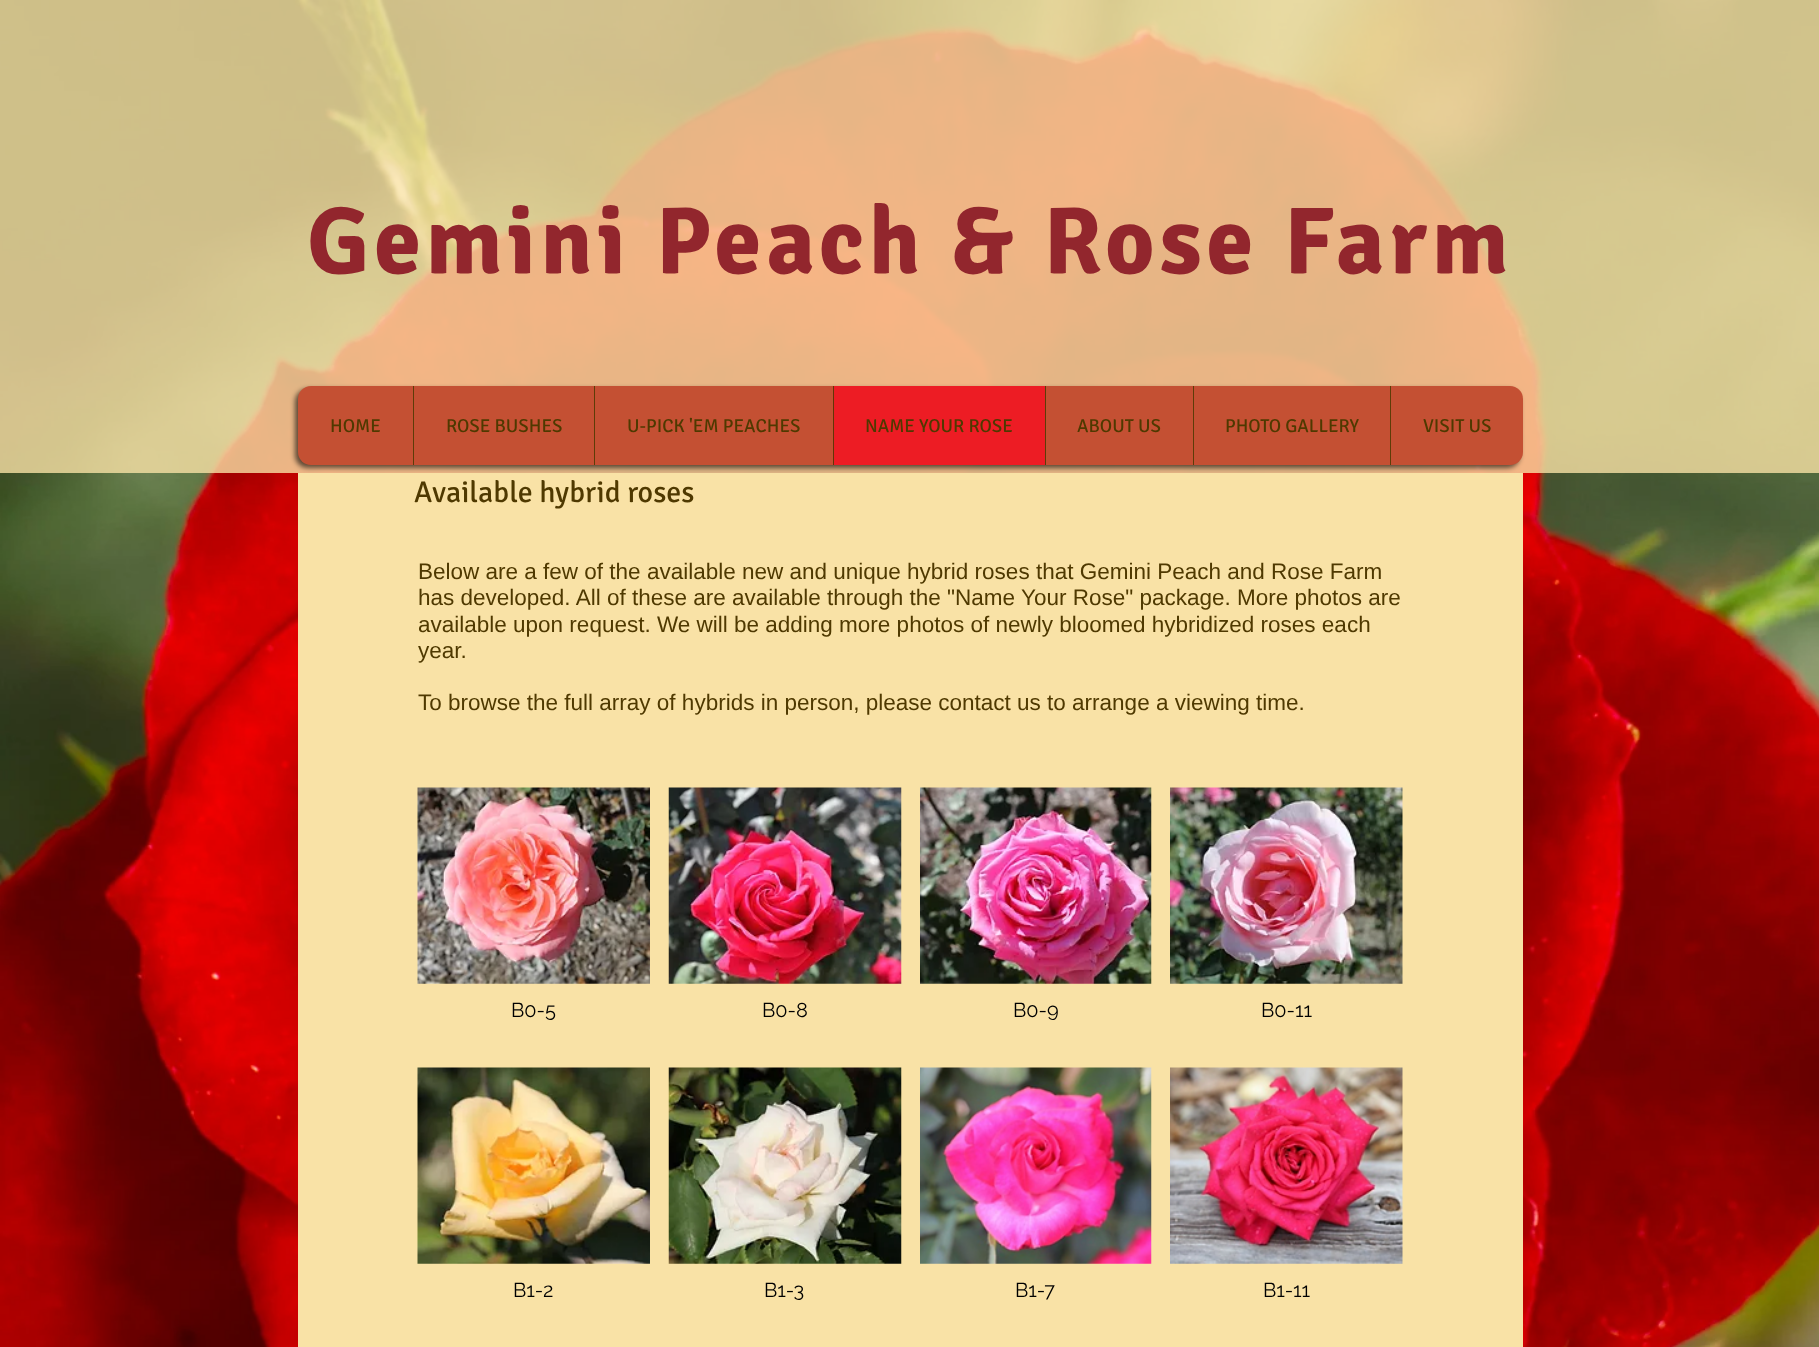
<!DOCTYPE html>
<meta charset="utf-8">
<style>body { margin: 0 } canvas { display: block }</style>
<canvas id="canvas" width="1819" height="1347"></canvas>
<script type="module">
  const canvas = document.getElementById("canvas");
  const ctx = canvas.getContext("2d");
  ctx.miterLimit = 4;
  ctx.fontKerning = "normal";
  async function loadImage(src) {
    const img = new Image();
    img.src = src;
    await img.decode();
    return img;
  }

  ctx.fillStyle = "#ffffff";
  ctx.fillRect(0, 0, 1819, 1347);
  ctx.drawImage(await loadImage("img1.png"), 0, 0, 1819, 1347);
  ctx.fillStyle = "rgba(249, 226, 166, 0.8)";
  ctx.fillRect(0, 0, 1819, 473);
  ctx.letterSpacing = "4.75px";
  ctx.font = "bold 95px Signika";
  ctx.fillStyle = "#92262d";
  ctx.fillText("Gemini Peach & Rose Farm", 307, 273);
  ctx.fillStyle = "rgba(0, 0, 0, 0.6)";
  ctx.filter = "blur(2.5px)";
  ctx.beginPath();
  ctx.roundRect(295, 389, 1225, 79, 13);
  ctx.fill();
  ctx.filter = "none";
  ctx.fillStyle = "#c45033";
  ctx.beginPath();
  ctx.roundRect(298, 386, 1225, 79, 13);
  ctx.fill();
  ctx.letterSpacing = "0px";
  ctx.font = "18.75px Signika";
  ctx.fillStyle = "#4f3900";
  ctx.fillText("HOME", 330, 432);
  ctx.fillStyle = "#5e3c07";
  ctx.fillRect(413, 386, 1, 79);
  ctx.fillStyle = "#4f3900";
  ctx.fillText("ROSE BUSHES", 446, 432);
  ctx.fillStyle = "#5e3c07";
  ctx.fillRect(594, 386, 1, 79);
  ctx.fillStyle = "#4f3900";
  ctx.fillText("U-PICK 'EM PEACHES", 627, 432);
  ctx.fillStyle = "#ed1c24";
  ctx.fillRect(834, 386, 211, 79);
  ctx.fillStyle = "#643505";
  ctx.fillRect(833, 386, 1, 79);
  ctx.fillStyle = "#4f3900";
  ctx.fillText("NAME YOUR ROSE", 865, 432);
  ctx.fillStyle = "#5e3c07";
  ctx.fillRect(1045, 386, 1, 79);
  ctx.fillStyle = "#4f3900";
  ctx.fillText("ABOUT US", 1077, 432);
  ctx.fillStyle = "#5e3c07";
  ctx.fillRect(1193, 386, 1, 79);
  ctx.fillStyle = "#4f3900";
  ctx.fillText("PHOTO GALLERY", 1225, 432);
  ctx.fillStyle = "#5e3c07";
  ctx.fillRect(1390, 386, 1, 79);
  ctx.fillStyle = "#4f3900";
  ctx.fillText("VISIT US", 1423, 432);
  ctx.fillStyle = "#f9e2a6";
  ctx.fillRect(298, 473, 1225, 874);
  ctx.font = "30px Signika";
  ctx.fillStyle = "#4f3900";
  ctx.fillText("Available hybrid roses", 414, 502);
  ctx.font = "22.5px Liberation Sans";
  ctx.fillText("Below are a few of the available new and unique hybrid roses that Gemini Peach and Rose Farm", 418, 579);
  ctx.fillText("has developed. All of these are available through the \"Name Your Rose\" package. More photos are", 418, 605);
  ctx.fillText("available upon request. We will be adding more photos of newly bloomed hybridized roses each", 418, 632);
  ctx.fillText("year.", 418, 658);
  ctx.fillText("To browse the full array of hybrids in person, please contact us to arrange a viewing time.", 418, 710);
  ctx.drawImage(await loadImage("img2.png"), 417, 787, 233, 197);
  ctx.font = "20px Raleway";
  ctx.fillStyle = "#000000";
  ctx.fillText("B0-5", 511, 1017);
  ctx.drawImage(await loadImage("img3.png"), 668, 787, 234, 197);
  ctx.fillText("B0-8", 762, 1017);
  ctx.drawImage(await loadImage("img4.png"), 920, 787, 232, 197);
  ctx.fillText("B0-9", 1013, 1017);
  ctx.drawImage(await loadImage("img5.png"), 1170, 787, 233, 197);
  ctx.fillText("B0-11", 1261, 1017);
  ctx.drawImage(await loadImage("img6.png"), 417, 1067, 233, 197);
  ctx.fillText("B1-2", 513, 1297);
  ctx.drawImage(await loadImage("img7.png"), 668, 1067, 234, 197);
  ctx.fillText("B1-3", 764, 1297);
  ctx.drawImage(await loadImage("img8.png"), 920, 1067, 232, 197);
  ctx.fillText("B1-7", 1015, 1297);
  ctx.drawImage(await loadImage("img9.png"), 1170, 1067, 233, 197);
  ctx.fillText("B1-11", 1263, 1297);
</script>
